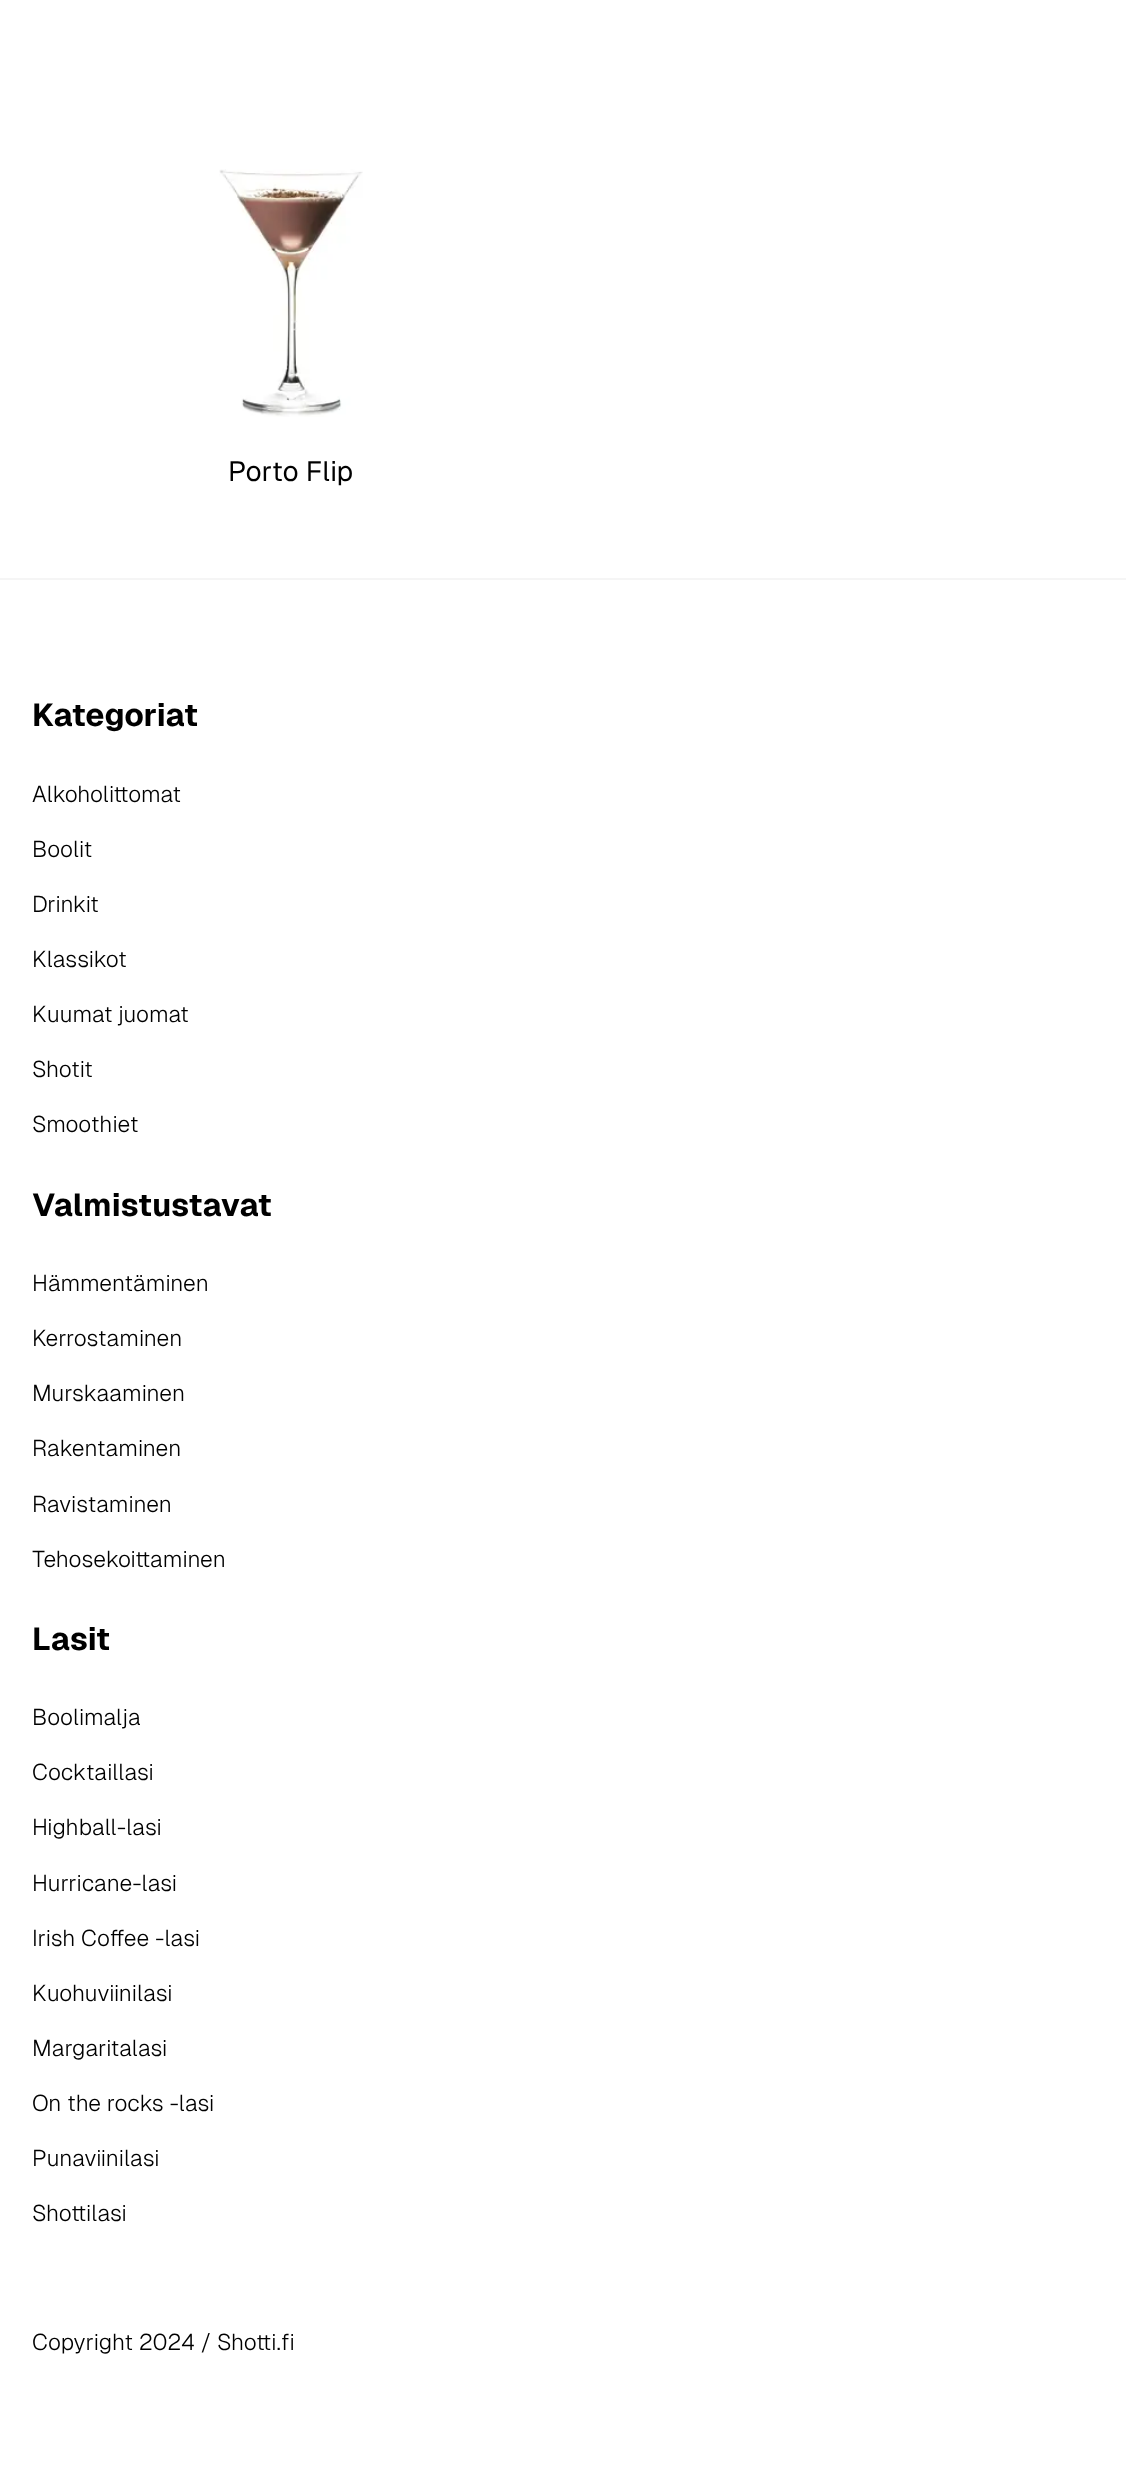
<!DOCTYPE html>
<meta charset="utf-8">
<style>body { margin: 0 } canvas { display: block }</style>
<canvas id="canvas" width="1126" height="2471"></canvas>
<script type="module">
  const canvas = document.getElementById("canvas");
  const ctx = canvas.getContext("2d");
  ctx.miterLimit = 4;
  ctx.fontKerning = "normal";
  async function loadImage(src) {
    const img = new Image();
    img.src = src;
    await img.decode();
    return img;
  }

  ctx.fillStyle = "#ffffff";
  ctx.fillRect(0, 0, 1126, 2471);
  ctx.drawImage(await loadImage("img1.png"), 219, 169, 144, 248);
  ctx.font = "28px Geist";
  ctx.fillStyle = "#000000";
  ctx.fillText("Porto Flip", 228, 481);
  ctx.fillStyle = "#f5f5f5";
  ctx.fillRect(0, 578, 1126, 2);
  ctx.font = "bold 31.75px Geist";
  ctx.fillStyle = "#000000";
  ctx.fillText("Kategoriat", 32, 726);
  ctx.font = "300 22.75px Geist";
  ctx.fillText("Alkoholittomat", 32, 802);
  ctx.fillText("Boolit", 32, 857);
  ctx.fillText("Drinkit", 32, 912);
  ctx.fillText("Klassikot", 32, 967);
  ctx.fillText("Kuumat juomat", 32, 1022);
  ctx.fillText("Shotit", 32, 1077);
  ctx.fillText("Smoothiet", 32, 1132);
  ctx.font = "bold 31.75px Geist";
  ctx.fillText("Valmistustavat", 32, 1216);
  ctx.font = "300 22.75px Geist";
  ctx.fillText("Hämmentäminen", 32, 1291);
  ctx.fillText("Kerrostaminen", 32, 1346);
  ctx.fillText("Murskaaminen", 32, 1401);
  ctx.fillText("Rakentaminen", 32, 1456);
  ctx.fillText("Ravistaminen", 32, 1512);
  ctx.fillText("Tehosekoittaminen", 32, 1567);
  ctx.font = "bold 31.75px Geist";
  ctx.fillText("Lasit", 32, 1650);
  ctx.font = "300 22.75px Geist";
  ctx.fillText("Boolimalja", 32, 1725);
  ctx.fillText("Cocktaillasi", 32, 1780);
  ctx.fillText("Highball-lasi", 32, 1835);
  ctx.fillText("Hurricane-lasi", 32, 1891);
  ctx.fillText("Irish Coffee -lasi", 32, 1946);
  ctx.fillText("Kuohuviinilasi", 32, 2001);
  ctx.fillText("Margaritalasi", 32, 2056);
  ctx.fillText("On the rocks -lasi", 32, 2111);
  ctx.fillText("Punaviinilasi", 32, 2166);
  ctx.fillText("Shottilasi", 32, 2221);
  ctx.fillText("Copyright 2024 / Shotti.fi", 32, 2350);
</script>
